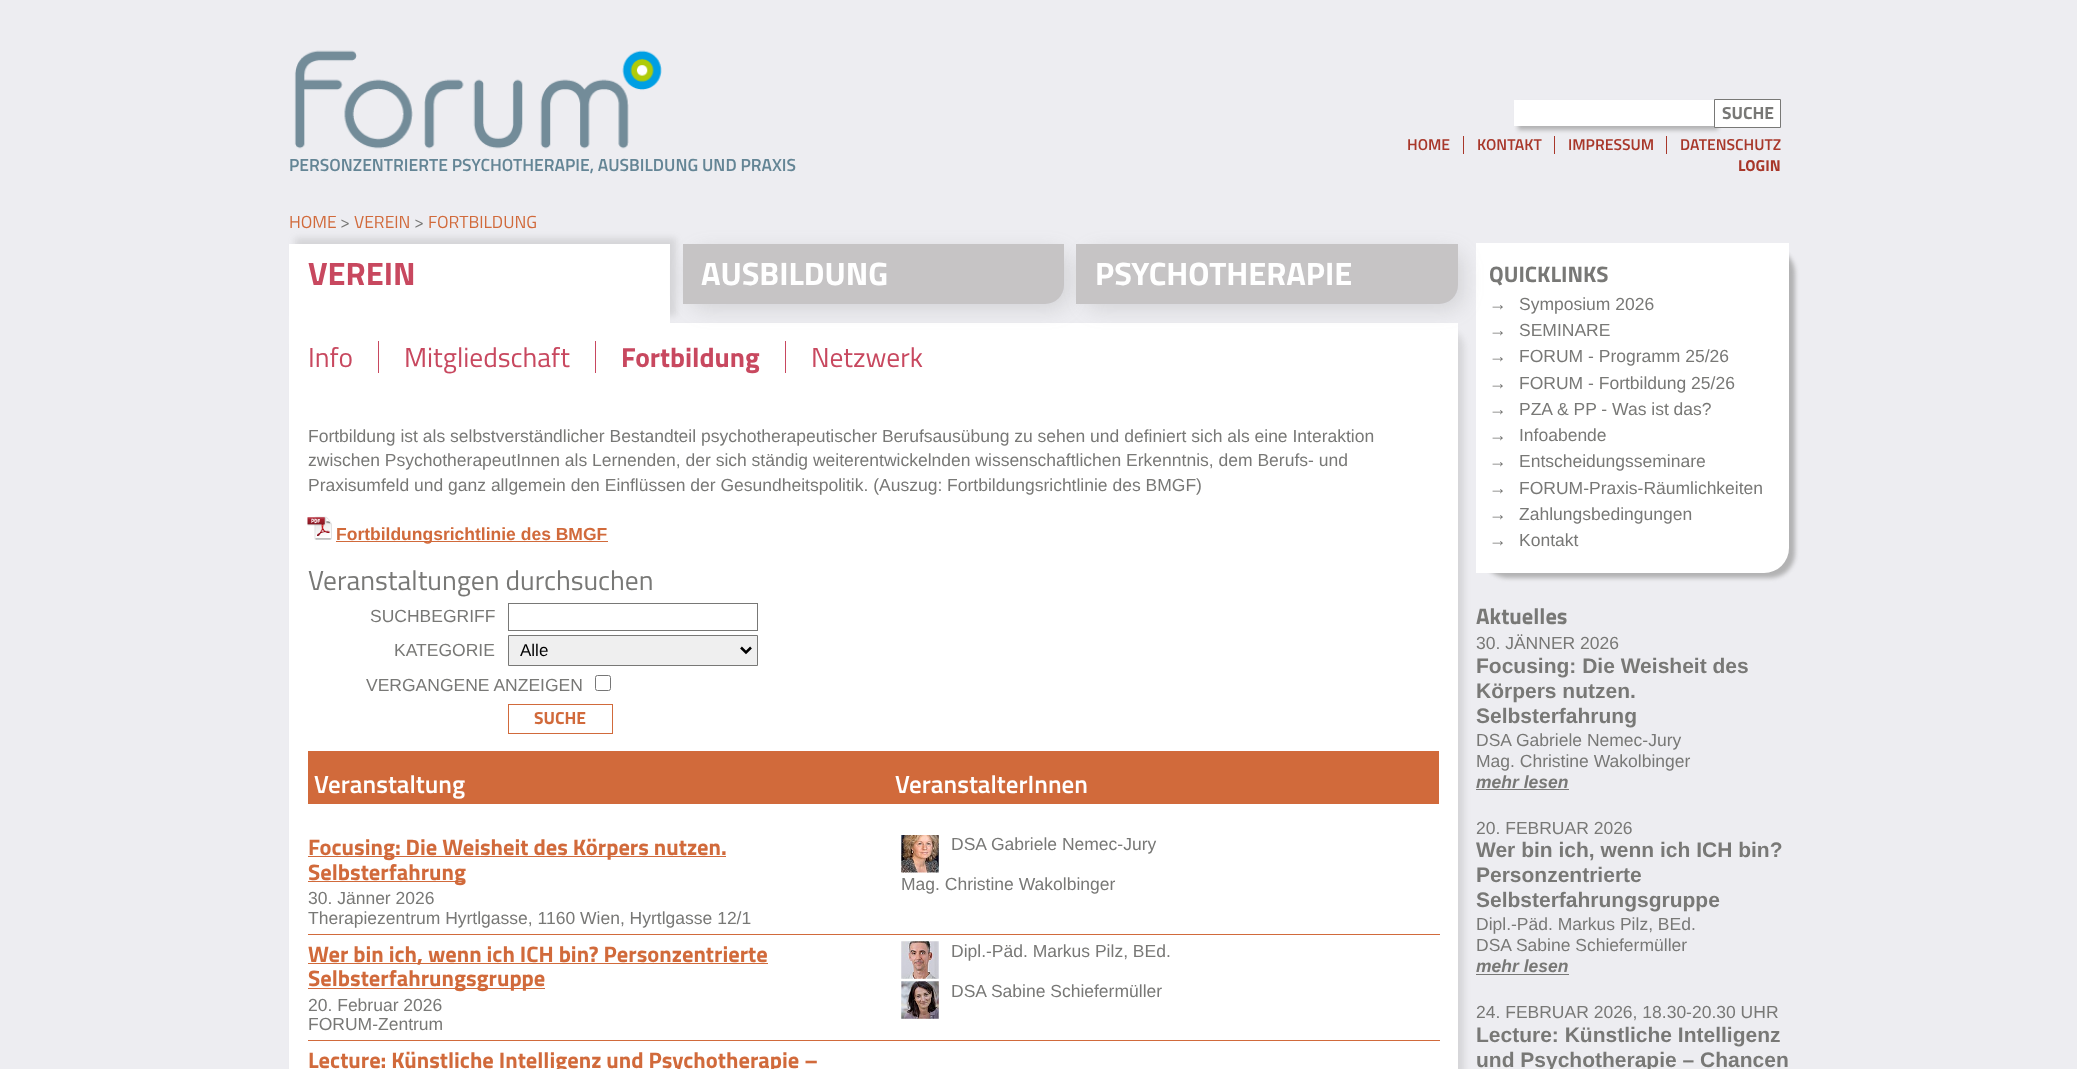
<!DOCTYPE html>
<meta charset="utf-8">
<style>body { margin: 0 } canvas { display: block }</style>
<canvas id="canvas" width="2077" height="1069"></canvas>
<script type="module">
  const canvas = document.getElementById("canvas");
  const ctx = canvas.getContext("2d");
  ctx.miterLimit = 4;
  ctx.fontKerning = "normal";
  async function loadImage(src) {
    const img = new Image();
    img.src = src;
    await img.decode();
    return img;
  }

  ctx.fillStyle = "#ededf1";
  ctx.fillRect(0, 0, 2077, 1069);
  ctx.drawImage(await loadImage("img1.png"), 294, 50, 368, 99);
  ctx.font = "600 17.5px Titillium Web";
  ctx.fillStyle = "#648595";
  ctx.fillText("PERSONZENTRIERTE PSYCHOTHERAPIE, AUSBILDUNG UND PRAXIS", 289, 171);
  ctx.fillStyle = "rgba(120, 120, 118, 0.5)";
  ctx.filter = "blur(2px)";
  ctx.beginPath();
  ctx.rect(1518, 104, 200, 26);
  ctx.fill();
  ctx.filter = "none";
  ctx.fillStyle = "#ffffff";
  ctx.fillRect(1514, 100, 200, 26);
  ctx.beginPath();
  ctx.rect(1714.5, 99.5, 66, 28);
  ctx.fill();
  ctx.strokeStyle = "#787876";
  ctx.stroke();
  ctx.font = "bold 17.5px Titillium Web";
  ctx.fillStyle = "#787876";
  ctx.fillText("SUCHE", 1722, 119);
  ctx.fillStyle = "#a8372a";
  ctx.fillRect(1463, 136, 1, 18);
  ctx.font = "600 15.75px Titillium Web";
  ctx.fillText("HOME", 1407, 150);
  ctx.fillRect(1554, 136, 1, 18);
  ctx.fillText("KONTAKT", 1477, 150);
  ctx.fillRect(1666, 136, 1, 18);
  ctx.fillText("IMPRESSUM", 1568, 150);
  ctx.fillText("DATENSCHUTZ", 1680, 150);
  ctx.font = "bold 15.75px Titillium Web";
  ctx.fillText("LOGIN", 1738, 171);
  ctx.font = "17.5px Titillium Web";
  ctx.fillStyle = "#d16a3b";
  ctx.fillText("HOME", 289, 228);
  ctx.fillStyle = "#787876";
  ctx.fillText(">", 340, 228);
  ctx.fillStyle = "#d16a3b";
  ctx.fillText("VEREIN", 354, 228);
  ctx.fillStyle = "#787876";
  ctx.fillText(">", 414, 228);
  ctx.fillStyle = "#d16a3b";
  ctx.fillText("FORTBILDUNG", 428, 228);
  ctx.fillStyle = "rgba(120, 120, 118, 0.2)";
  ctx.filter = "blur(3px)";
  ctx.beginPath();
  ctx.roundRect(295, 329, 1169, 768, 19);
  ctx.fill();
  ctx.filter = "none";
  ctx.fillStyle = "#ffffff";
  ctx.fillRect(289, 323, 1169, 746);
  ctx.fillStyle = "rgba(120, 120, 118, 0.2)";
  ctx.filter = "blur(3px)";
  ctx.beginPath();
  ctx.rect(295, 238, 381, 78);
  ctx.fill();
  ctx.filter = "none";
  ctx.fillStyle = "#ffffff";
  ctx.fillRect(289, 244, 381, 79);
  ctx.font = "bold 32.5px Titillium Web";
  ctx.fillStyle = "#c8485f";
  ctx.fillText("VEREIN", 308, 285);
  ctx.fillStyle = "rgba(120, 120, 118, 0.2)";
  ctx.filter = "blur(9.5px)";
  ctx.beginPath();
  ctx.roundRect(689, 250, 381, 60, 19);
  ctx.fill();
  ctx.filter = "none";
  ctx.fillStyle = "#c6c4c5";
  ctx.beginPath();
  ctx.roundRect(683, 244, 381, 60, [0, 0, 19, 0]);
  ctx.fill();
  ctx.fillStyle = "#ffffff";
  ctx.fillText("AUSBILDUNG", 701, 285);
  ctx.fillStyle = "rgba(120, 120, 118, 0.5)";
  ctx.filter = "blur(2px)";
  ctx.beginPath();
  ctx.roundRect(1483, 248, 312, 330, 25);
  ctx.fill();
  ctx.filter = "none";
  ctx.fillStyle = "#ffffff";
  ctx.beginPath();
  ctx.roundRect(1476, 243, 313, 330, [0, 0, 25, 0]);
  ctx.fill();
  ctx.fillStyle = "rgba(120, 120, 118, 0.2)";
  ctx.filter = "blur(9.5px)";
  ctx.beginPath();
  ctx.roundRect(1083, 250, 381, 60, 19);
  ctx.fill();
  ctx.filter = "none";
  ctx.fillStyle = "#c6c4c5";
  ctx.beginPath();
  ctx.roundRect(1076, 244, 382, 60, [0, 0, 19, 0]);
  ctx.fill();
  ctx.fillStyle = "#ffffff";
  ctx.fillText("PSYCHOTHERAPIE", 1095, 285);
  ctx.fillStyle = "#c8485f";
  ctx.fillRect(378, 341, 1, 32);
  ctx.font = "27.5px Titillium Web";
  ctx.fillText("Info", 308, 367);
  ctx.fillRect(595, 341, 1, 32);
  ctx.fillText("Mitgliedschaft", 404, 367);
  ctx.fillRect(785, 341, 1, 32);
  ctx.font = "bold 27.5px Titillium Web";
  ctx.fillText("Fortbildung", 621, 367);
  ctx.font = "27.5px Titillium Web";
  ctx.fillText("Netzwerk", 811, 367);
  ctx.font = "17.5px Liberation Sans";
  ctx.fillStyle = "#787876";
  ctx.fillText("Fortbildung ist als selbstverständlicher Bestandteil psychotherapeutischer Berufsausübung zu sehen und definiert sich als eine Interaktion", 308, 442);
  ctx.fillText("zwischen PsychotherapeutInnen als Lernenden, der sich ständig weiterentwickelnden wissenschaftlichen Erkenntnis, dem Berufs- und", 308, 466);
  ctx.fillText("Praxisumfeld und ganz allgemein den Einflüssen der Gesundheitspolitik. (Auszug: Fortbildungsrichtlinie des BMGF)", 308, 491);
  ctx.drawImage(await loadImage("img2.png"), 307, 516, 25, 24);
  ctx.fillStyle = "#d16a3b";
  ctx.fillRect(336, 541, 272, 1);
  ctx.font = "bold 17.5px Liberation Sans";
  ctx.fillText("Fortbildungsrichtlinie des BMGF", 336, 540);
  ctx.font = "27.5px Titillium Web";
  ctx.fillStyle = "#787876";
  ctx.fillText("Veranstaltungen durchsuchen", 308, 590);
  ctx.font = "17.5px Liberation Sans";
  ctx.fillText("SUCHBEGRIFF", 370, 622);
  ctx.strokeRect(508.5, 603.5, 249, 27);
  ctx.fillText("KATEGORIE", 394, 656);
  ctx.fillStyle = "#efefef";
  ctx.beginPath();
  ctx.rect(508.5, 635.5, 249, 30);
  ctx.fill();
  ctx.stroke();
  ctx.beginPath();
  ctx.moveTo(741, 647.5);
  ctx.lineTo(746, 652.5);
  ctx.lineTo(751, 647.5);
  ctx.strokeStyle = "#000000";
  ctx.lineWidth = 2.5;
  ctx.stroke();
  ctx.font = "17px Liberation Sans";
  ctx.fillStyle = "#000000";
  ctx.fillText("Alle", 520, 656);
  ctx.font = "17.5px Liberation Sans";
  ctx.fillStyle = "#787876";
  ctx.fillText("VERGANGENE ANZEIGEN", 366, 691);
  ctx.beginPath();
  ctx.roundRect(595.5, 675.5, 15, 15, 2);
  ctx.strokeStyle = "#767676";
  ctx.lineWidth = 1;
  ctx.stroke();
  ctx.strokeStyle = "#d16a3b";
  ctx.strokeRect(508.5, 704.5, 104, 29);
  ctx.font = "bold 17.5px Titillium Web";
  ctx.fillStyle = "#d16a3b";
  ctx.fillText("SUCHE", 534, 724);
  ctx.fillRect(308, 751, 1131, 53);
  ctx.font = "600 25px Titillium Web";
  ctx.fillStyle = "#ffffff";
  ctx.fillText("Veranstaltung", 314, 793);
  ctx.fillText("VeranstalterInnen", 895, 793);
  ctx.fillStyle = "#d16a3b";
  ctx.fillRect(308, 856, 418, 1);
  ctx.font = "bold 22.5px Titillium Web";
  ctx.fillText("Focusing: Die Weisheit des Körpers nutzen.", 308, 855);
  ctx.fillRect(308, 881, 157, 1);
  ctx.fillText("Selbsterfahrung", 308, 880);
  ctx.font = "17.5px Liberation Sans";
  ctx.fillStyle = "#787876";
  ctx.fillText("30. Jänner 2026", 308, 904);
  ctx.fillText("Therapiezentrum Hyrtlgasse, 1160 Wien, Hyrtlgasse 12/1", 308, 924);
  ctx.drawImage(await loadImage("img3.png"), 901, 835, 38, 38);
  ctx.fillText("DSA Gabriele Nemec-Jury", 951, 850);
  ctx.fillText("Mag. Christine Wakolbinger", 901, 890);
  ctx.fillStyle = "#d16a3b";
  ctx.fillRect(308, 934, 1132, 1);
  ctx.fillRect(308, 963, 460, 1);
  ctx.font = "bold 22.5px Titillium Web";
  ctx.fillText("Wer bin ich, wenn ich ICH bin? Personzentrierte", 308, 962);
  ctx.fillRect(308, 988, 237, 1);
  ctx.fillText("Selbsterfahrungsgruppe", 308, 986);
  ctx.font = "17.5px Liberation Sans";
  ctx.fillStyle = "#787876";
  ctx.fillText("20. Februar 2026", 308, 1011);
  ctx.fillText("FORUM-Zentrum", 308, 1030);
  ctx.drawImage(await loadImage("img4.png"), 901, 941, 38, 38);
  ctx.fillText("Dipl.-Päd. Markus Pilz, BEd.", 951, 957);
  ctx.drawImage(await loadImage("img5.png"), 901, 981, 38, 38);
  ctx.fillText("DSA Sabine Schiefermüller", 951, 997);
  ctx.fillStyle = "#d16a3b";
  ctx.fillRect(308, 1040, 1132, 1);
  ctx.font = "bold 22.5px Titillium Web";
  ctx.fillText("Lecture: Künstliche Intelligenz und Psychotherapie –", 308, 1068);
  ctx.fillStyle = "#787876";
  ctx.fillText("QUICKLINKS", 1489, 282);
  ctx.font = "17.5px Liberation Sans";
  ctx.fillText("→", 1489, 310);
  ctx.fillText("Symposium 2026", 1519, 310);
  ctx.fillText("→", 1489, 336);
  ctx.fillText("SEMINARE", 1519, 336);
  ctx.fillText("→", 1489, 362);
  ctx.fillText("FORUM - Programm 25/26", 1519, 362);
  ctx.fillText("→", 1489, 389);
  ctx.fillText("FORUM - Fortbildung 25/26", 1519, 389);
  ctx.fillText("→", 1489, 415);
  ctx.fillText("PZA & PP - Was ist das?", 1519, 415);
  ctx.fillText("→", 1489, 441);
  ctx.fillText("Infoabende", 1519, 441);
  ctx.fillText("→", 1489, 467);
  ctx.fillText("Entscheidungsseminare", 1519, 467);
  ctx.fillText("→", 1489, 494);
  ctx.fillText("FORUM-Praxis-Räumlichkeiten", 1519, 494);
  ctx.fillText("→", 1489, 520);
  ctx.fillText("Zahlungsbedingungen", 1519, 520);
  ctx.fillText("→", 1489, 546);
  ctx.fillText("Kontakt", 1519, 546);
  ctx.font = "bold 22.5px Titillium Web";
  ctx.fillText("Aktuelles", 1476, 624);
  ctx.font = "17.5px Liberation Sans";
  ctx.fillText("30. JÄNNER 2026", 1476, 649);
  ctx.font = "bold 21px Liberation Sans";
  ctx.fillText("Focusing: Die Weisheit des", 1476, 673);
  ctx.fillText("Körpers nutzen.", 1476, 698);
  ctx.fillText("Selbsterfahrung", 1476, 723);
  ctx.font = "17.5px Liberation Sans";
  ctx.fillText("DSA Gabriele Nemec-Jury", 1476, 746);
  ctx.fillText("Mag. Christine Wakolbinger", 1476, 767);
  ctx.font = "italic bold 17.5px Liberation Sans";
  ctx.fillText("mehr lesen", 1476, 788);
  ctx.fillRect(1476, 789, 93, 1);
  ctx.font = "17.5px Liberation Sans";
  ctx.fillText("20. FEBRUAR 2026", 1476, 834);
  ctx.font = "bold 21px Liberation Sans";
  ctx.fillText("Wer bin ich, wenn ich ICH bin?", 1476, 857);
  ctx.fillText("Personzentrierte", 1476, 882);
  ctx.fillText("Selbsterfahrungsgruppe", 1476, 907);
  ctx.font = "17.5px Liberation Sans";
  ctx.fillText("Dipl.-Päd. Markus Pilz, BEd.", 1476, 930);
  ctx.fillText("DSA Sabine Schiefermüller", 1476, 951);
  ctx.font = "italic bold 17.5px Liberation Sans";
  ctx.fillText("mehr lesen", 1476, 972);
  ctx.fillRect(1476, 974, 93, 1);
  ctx.font = "17.5px Liberation Sans";
  ctx.fillText("24. FEBRUAR 2026, 18.30-20.30 UHR", 1476, 1018);
  ctx.font = "bold 21px Liberation Sans";
  ctx.fillText("Lecture: Künstliche Intelligenz", 1476, 1042);
  ctx.fillText("und Psychotherapie – Chancen", 1476, 1067);
</script>
